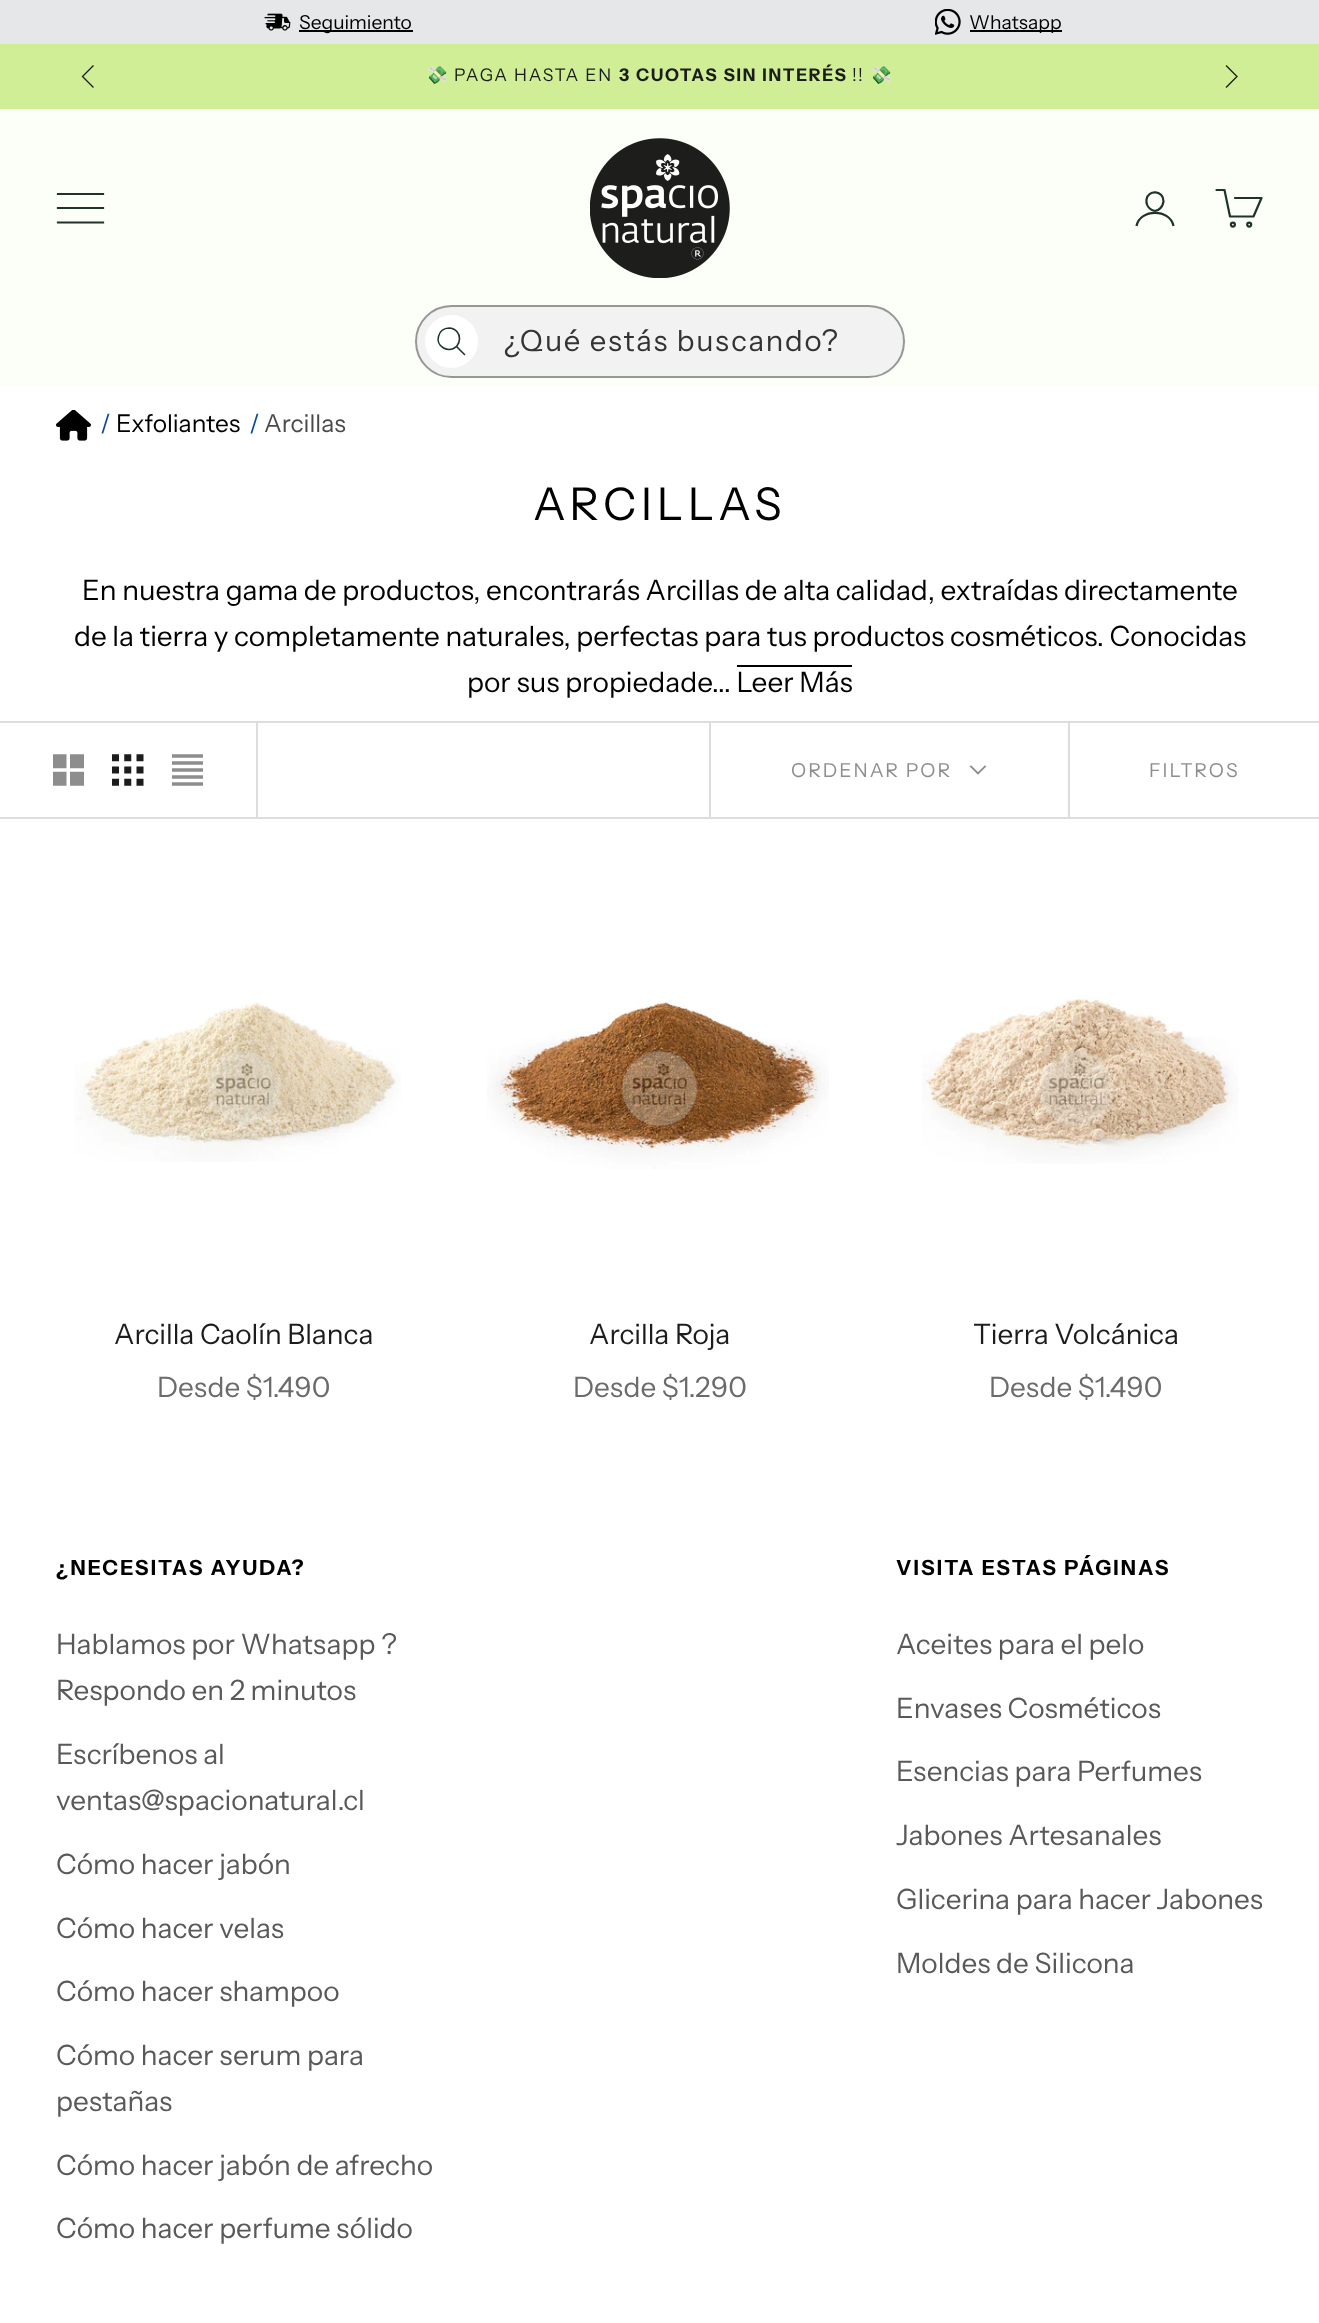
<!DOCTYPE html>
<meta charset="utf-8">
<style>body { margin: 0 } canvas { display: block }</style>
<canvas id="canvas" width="1319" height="2323"></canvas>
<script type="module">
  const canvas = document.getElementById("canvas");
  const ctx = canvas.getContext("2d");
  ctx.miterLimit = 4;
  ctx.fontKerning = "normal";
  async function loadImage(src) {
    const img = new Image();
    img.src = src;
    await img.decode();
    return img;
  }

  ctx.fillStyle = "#ffffff";
  ctx.fillRect(0, 0, 1319, 2323);
  ctx.fillStyle = "#e6e7e8";
  ctx.fillRect(0, 0, 1319, 44);
  ctx.drawImage(await loadImage("img1.png"), 264, 13, 27, 18);
  ctx.fillStyle = "#000000";
  ctx.fillRect(299, 30, 114, 2);
  ctx.font = "19.25px Instrument Sans";
  ctx.fillText("Seguimiento", 299, 29);
  ctx.drawImage(await loadImage("img2.png"), 935, 9, 26, 26);
  ctx.fillRect(970, 30, 92, 2);
  ctx.fillText("Whatsapp", 969, 29);
  ctx.fillStyle = "#cfee96";
  ctx.fillRect(0, 44, 1319, 65);
  ctx.beginPath();
  ctx.moveTo(93, 66);
  ctx.lineTo(82.5, 76.5);
  ctx.lineTo(93, 87);
  ctx.strokeStyle = "#1c1c1c";
  ctx.lineWidth = 1.3;
  ctx.lineCap = "square";
  ctx.stroke();
  ctx.letterSpacing = "1.75px";
  ctx.font = "17.5px Noto Color Emoji";
  ctx.fillStyle = "#1c1c1c";
  ctx.fillText("💸", 426, 81);
  ctx.font = "17.5px Instrument Sans";
  ctx.fillText("PAGA HASTA EN", 454, 81);
  ctx.font = "bold 17.5px Instrument Sans";
  ctx.fillText("3 CUOTAS SIN INTERÉS", 619, 81);
  ctx.font = "17.5px Instrument Sans";
  ctx.fillText("!!", 852, 81);
  ctx.font = "17.5px Noto Color Emoji";
  ctx.fillText("💸", 870, 81);
  ctx.beginPath();
  ctx.moveTo(1226.5, 87);
  ctx.lineTo(1237, 76.5);
  ctx.lineTo(1226.5, 66);
  ctx.stroke();
  ctx.fillStyle = "#fcfff7";
  ctx.fillRect(0, 109, 1319, 278);
  ctx.beginPath();
  ctx.moveTo(58, 222.5);
  ctx.lineTo(103, 222.5);
  ctx.moveTo(58, 208);
  ctx.lineTo(103, 208);
  ctx.moveTo(58, 194);
  ctx.lineTo(103, 194);
  ctx.strokeStyle = "#1f322b";
  ctx.lineWidth = 2.2;
  ctx.stroke();
  ctx.drawImage(await loadImage("img3.png"), 590, 138, 140, 140);
  ctx.beginPath();
  ctx.moveTo(1163.5, 201.5);
  ctx.bezierCurveTo(1163, 204, 1162.5, 206.5, 1160.5, 208);
  ctx.bezierCurveTo(1154.5, 215, 1145.5, 207.5, 1146.5, 199.5);
  ctx.bezierCurveTo(1148, 189, 1164, 190.5, 1163.5, 201.5);
  ctx.closePath();
  ctx.lineCap = "round";
  ctx.lineJoin = "round";
  ctx.stroke();
  ctx.beginPath();
  ctx.moveTo(1136.5, 226);
  ctx.bezierCurveTo(1140, 208.5, 1170, 208.5, 1173.5, 226);
  ctx.lineCap = "butt";
  ctx.lineJoin = "miter";
  ctx.stroke();
  ctx.beginPath();
  ctx.moveTo(1235, 198);
  ctx.lineTo(1261.5, 198);
  ctx.lineTo(1253.5, 216.5);
  ctx.lineTo(1230, 216.5);
  ctx.lineTo(1224.5, 190);
  ctx.lineTo(1216.5, 190);
  ctx.lineCap = "round";
  ctx.lineJoin = "round";
  ctx.stroke();
  ctx.beginPath();
  ctx.arc(1232.9, 224.6, 2, 0, Math.PI * 2);
  ctx.stroke();
  ctx.beginPath();
  ctx.arc(1249.2, 224.6, 2, 0, Math.PI * 2);
  ctx.stroke();
  ctx.fillStyle = "#f2f2f2";
  ctx.beginPath();
  ctx.roundRect(416, 306, 488, 71, 35.5);
  ctx.fill();
  ctx.strokeStyle = "#979797";
  ctx.lineWidth = 2;
  ctx.lineJoin = "miter";
  ctx.stroke();
  ctx.fillStyle = "#ffffff";
  ctx.beginPath();
  ctx.arc(451.5, 341.5, 26.5, 0, Math.PI * 2);
  ctx.fill();
  ctx.beginPath();
  ctx.moveTo(449, 328);
  ctx.bezierCurveTo(438, 328, 434, 343, 443.5, 348);
  ctx.bezierCurveTo(445.5, 349, 447.5, 349.5, 449, 349.5);
  ctx.bezierCurveTo(463, 349, 463, 328.5, 449, 328);
  ctx.closePath();
  ctx.strokeStyle = "#1f322b";
  ctx.lineWidth = 1.6;
  ctx.lineCap = "butt";
  ctx.stroke();
  ctx.beginPath();
  ctx.moveTo(457, 347);
  ctx.lineTo(464.5, 354.5);
  ctx.lineCap = "round";
  ctx.stroke();
  ctx.font = "29.25px Instrument Sans";
  ctx.fillStyle = "#333333";
  ctx.fillText("¿Qué estás buscando?", 504, 351);
  ctx.drawImage(await loadImage("img4.png"), 56, 410, 35, 31);
  ctx.letterSpacing = "0px";
  ctx.font = "24.5px Instrument Sans";
  ctx.fillStyle = "#0b479d";
  ctx.fillText("/", 100, 432);
  ctx.fillStyle = "#000000";
  ctx.fillText("Exfoliantes", 116, 432);
  ctx.fillStyle = "#0b479d";
  ctx.fillText("/", 249, 432);
  ctx.fillStyle = "#4a4a4a";
  ctx.fillText("Arcillas", 264, 432);
  ctx.letterSpacing = "4.5px";
  ctx.font = "45px Instrument Sans";
  ctx.fillStyle = "#000000";
  ctx.fillText("ARCILLAS", 533, 520);
  ctx.letterSpacing = "0px";
  ctx.font = "28px Instrument Sans";
  ctx.fillText("En nuestra gama de productos, encontrarás Arcillas de alta calidad, extraídas directamente", 82, 600);
  ctx.fillText("de la tierra y completamente naturales, perfectas para tus productos cosméticos. Conocidas", 74, 646);
  ctx.fillRect(737, 665, 115, 2);
  ctx.fillText("por sus propiedade... Leer Más", 467, 692);
  ctx.fillStyle = "#dddddd";
  ctx.beginPath();
  ctx.moveTo(0, 721);
  ctx.lineTo(0, 723);
  ctx.lineTo(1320, 723);
  ctx.lineTo(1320, 816);
  ctx.lineTo(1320, 721);
  ctx.closePath();
  ctx.fill();
  ctx.beginPath();
  ctx.moveTo(0, 817);
  ctx.lineTo(0, 819);
  ctx.lineTo(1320, 819);
  ctx.lineTo(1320, 725);
  ctx.lineTo(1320, 817);
  ctx.closePath();
  ctx.fill();
  ctx.fillRect(256, 723, 2, 94);
  ctx.drawImage(await loadImage("img5.png"), 53, 754, 31, 32);
  ctx.drawImage(await loadImage("img6.png"), 112, 754, 32, 32);
  ctx.drawImage(await loadImage("img7.png"), 172, 754, 31, 32);
  ctx.fillRect(709, 723, 2, 94);
  ctx.letterSpacing = "2px";
  ctx.font = "19.25px Instrument Sans";
  ctx.fillStyle = "#8e8e8e";
  ctx.fillText("ORDENAR POR", 791, 777);
  ctx.beginPath();
  ctx.moveTo(971, 766.5);
  ctx.lineTo(978, 773.5);
  ctx.lineTo(985, 766.5);
  ctx.strokeStyle = "#8e8e8e";
  ctx.lineWidth = 1.8;
  ctx.lineCap = "square";
  ctx.stroke();
  ctx.fillStyle = "#dddddd";
  ctx.fillRect(1068, 723, 2, 94);
  ctx.fillStyle = "#8e8e8e";
  ctx.fillText("FILTROS", 1149, 777);
  ctx.drawImage(await loadImage("img8.png"), 74, 1002, 327, 160);
  ctx.letterSpacing = "0px";
  ctx.font = "28px Instrument Sans";
  ctx.fillStyle = "#1c1c1c";
  ctx.fillText("Arcilla Caolín Blanca", 114, 1344);
  ctx.fillStyle = "#6b6b6b";
  ctx.fillText("Desde $1.490", 157, 1397);
  ctx.drawImage(await loadImage("img9.png"), 487, 1001, 342, 168);
  ctx.fillStyle = "#1c1c1c";
  ctx.fillText("Arcilla Roja", 589, 1344);
  ctx.fillStyle = "#6b6b6b";
  ctx.fillText("Desde $1.290", 573, 1397);
  ctx.drawImage(await loadImage("img10.png"), 922, 995, 317, 169);
  ctx.fillStyle = "#1c1c1c";
  ctx.fillText("Tierra Volcánica", 973, 1344);
  ctx.fillStyle = "#6b6b6b";
  ctx.fillText("Desde $1.490", 989, 1397);
  ctx.letterSpacing = "2.1px";
  ctx.font = "bold 21px Instrument Sans";
  ctx.fillStyle = "#000000";
  ctx.fillText("¿NECESITAS AYUDA?", 56, 1575);
  ctx.letterSpacing = "0px";
  ctx.font = "28px Instrument Sans";
  ctx.fillStyle = "#595959";
  ctx.fillText("Hablamos por Whatsapp ?", 56, 1654);
  ctx.fillText("Respondo en 2 minutos", 56, 1700);
  ctx.fillText("Escríbenos al", 56, 1764);
  ctx.fillText("ventas@spacionatural.cl", 56, 1810);
  ctx.fillText("Cómo hacer jabón", 56, 1874);
  ctx.fillText("Cómo hacer velas", 56, 1938);
  ctx.fillText("Cómo hacer shampoo", 56, 2001);
  ctx.fillText("Cómo hacer serum para", 56, 2065);
  ctx.fillText("pestañas", 56, 2111);
  ctx.fillText("Cómo hacer jabón de afrecho", 56, 2175);
  ctx.fillText("Cómo hacer perfume sólido", 56, 2238);
  ctx.letterSpacing = "2.1px";
  ctx.font = "bold 21px Instrument Sans";
  ctx.fillStyle = "#000000";
  ctx.fillText("VISITA ESTAS PÁGINAS", 896, 1575);
  ctx.letterSpacing = "0px";
  ctx.font = "28px Instrument Sans";
  ctx.fillStyle = "#595959";
  ctx.fillText("Aceites para el pelo", 896, 1654);
  ctx.fillText("Envases Cosméticos", 896, 1718);
  ctx.fillText("Esencias para Perfumes", 896, 1781);
  ctx.fillText("Jabones Artesanales", 896, 1845);
  ctx.fillText("Glicerina para hacer Jabones", 896, 1909);
  ctx.fillText("Moldes de Silicona", 896, 1973);
</script>
